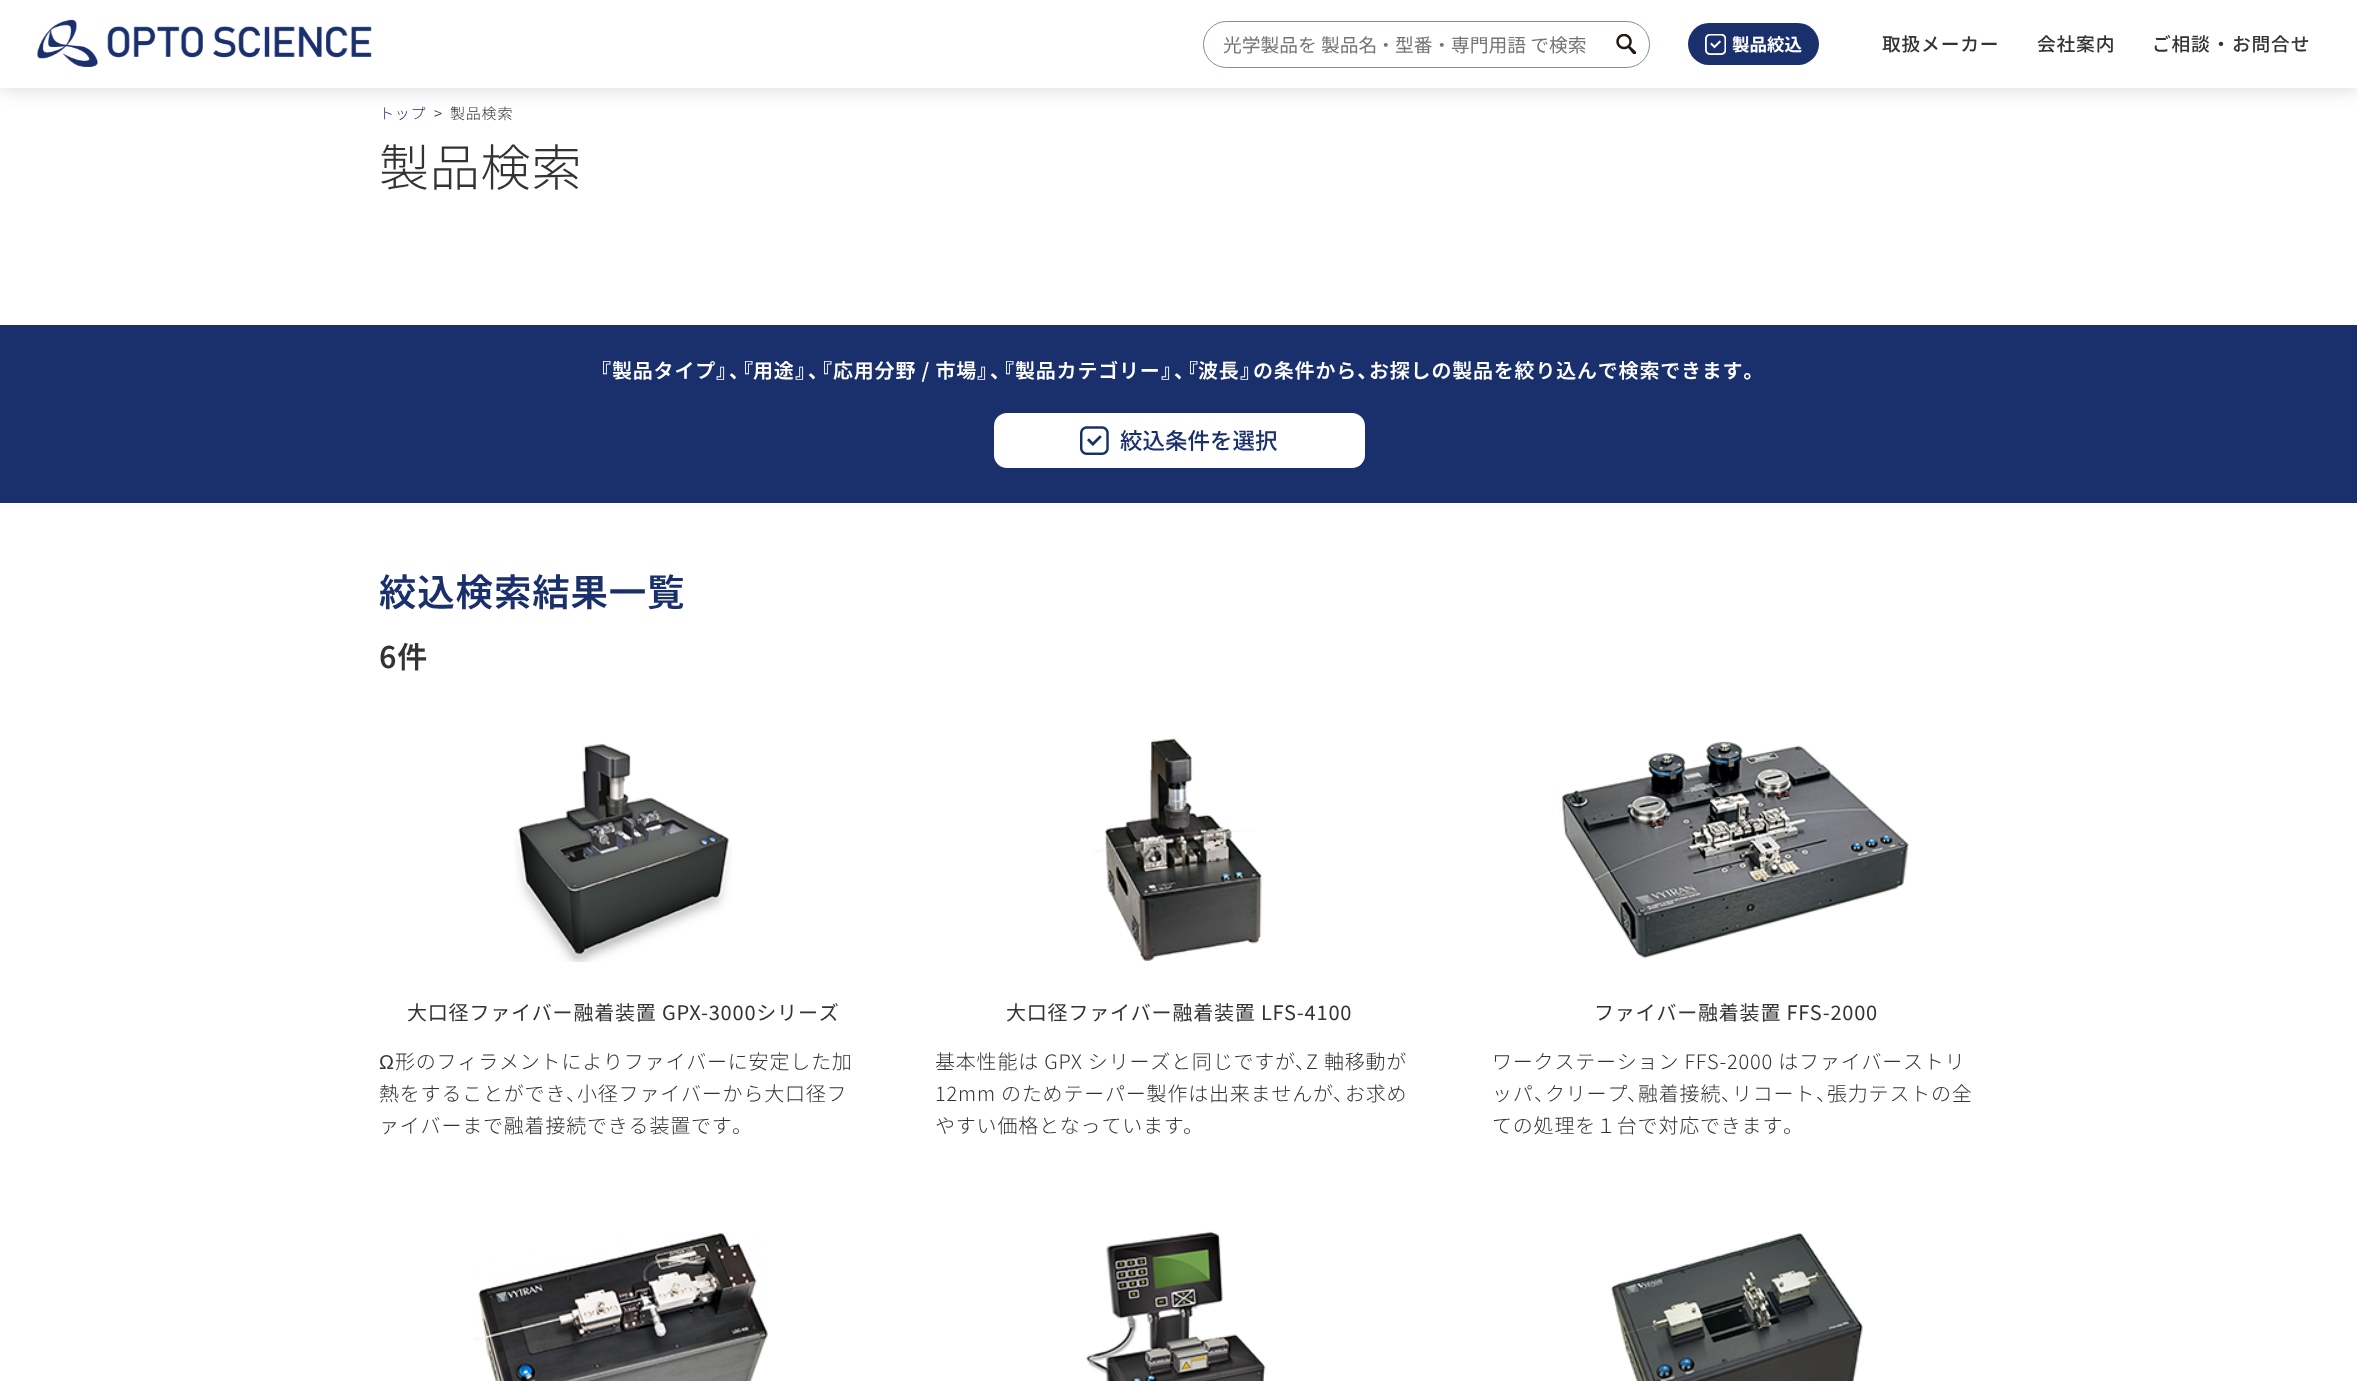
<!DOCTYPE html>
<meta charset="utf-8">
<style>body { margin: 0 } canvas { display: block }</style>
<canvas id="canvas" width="2357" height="1381"></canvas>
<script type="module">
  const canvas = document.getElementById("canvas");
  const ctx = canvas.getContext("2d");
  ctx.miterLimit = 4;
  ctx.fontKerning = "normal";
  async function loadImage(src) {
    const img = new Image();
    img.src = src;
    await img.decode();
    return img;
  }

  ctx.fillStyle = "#ffffff";
  ctx.fillRect(0, 0, 2357, 1381);
  ctx.fillStyle = "rgba(34, 35, 36, 0.2)";
  ctx.filter = "blur(9.5px)";
  ctx.beginPath();
  ctx.rect(0, 0, 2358, 88);
  ctx.fill();
  ctx.filter = "none";
  ctx.fillStyle = "#ffffff";
  ctx.fillRect(0, 0, 2357, 88);
  ctx.drawImage(await loadImage("img1.png"), 37, 19, 335, 48);
  ctx.beginPath();
  ctx.roundRect(1203.5, 21.5, 446, 46, 23);
  ctx.strokeStyle = "#7c8da8";
  ctx.stroke();
  ctx.font = "18.75px Noto Sans JP";
  ctx.fillStyle = "#757575";
  ctx.fillText("光学製品を 製品名", 1223, 52);
  ctx.font = "18.75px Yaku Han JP";
  ctx.fillText("・", 1381, 52);
  ctx.font = "18.75px Noto Sans JP";
  ctx.fillText("型番", 1395, 52);
  ctx.font = "18.75px Yaku Han JP";
  ctx.fillText("・", 1437, 52);
  ctx.font = "18.75px Noto Sans JP";
  ctx.fillText("専門用語 で検索", 1451, 52);
  ctx.drawImage(await loadImage("img2.png"), 1616, 34, 20, 20);
  ctx.fillStyle = "#1a306d";
  ctx.beginPath();
  ctx.roundRect(1688, 23, 131, 42, 21);
  ctx.fill();
  ctx.drawImage(await loadImage("img3.png"), 1705, 34, 21, 21);
  ctx.font = "bold 17.5px Noto Sans JP";
  ctx.fillStyle = "#ffffff";
  ctx.fillText("製品絞込", 1732, 51);
  ctx.letterSpacing = "0.8px";
  ctx.font = "500 18.75px Noto Sans JP";
  ctx.fillStyle = "#333333";
  ctx.fillText("取扱メーカー", 1882, 51);
  ctx.fillText("会社案内", 2037, 51);
  ctx.fillText("ご相談", 2152, 51);
  ctx.font = "500 18.75px Yaku Han JP";
  ctx.fillText("・", 2216, 51);
  ctx.font = "500 18.75px Noto Sans JP";
  ctx.fillText("お問合せ", 2232, 51);
  ctx.font = "300 15px Noto Sans JP";
  ctx.fillStyle = "#1a306d";
  ctx.fillText("トップ", 379, 119);
  ctx.fillStyle = "#333333";
  ctx.fillText(">", 434, 119);
  ctx.fillText("製品検索", 450, 119);
  ctx.font = "300 50px Noto Sans JP";
  ctx.fillText("製品検索", 379, 186);
  ctx.fillStyle = "#1a306d";
  ctx.fillRect(0, 325, 2357, 178);
  ctx.font = "bold 20px Yaku Han JP";
  ctx.fillStyle = "#ffffff";
  ctx.fillText("『", 599, 378);
  ctx.font = "600 20px Noto Sans JP";
  ctx.fillText("製品タイプ", 612, 378);
  ctx.font = "bold 20px Yaku Han JP";
  ctx.fillText("』、『", 716, 378);
  ctx.font = "600 20px Noto Sans JP";
  ctx.fillText("用途", 753, 378);
  ctx.font = "bold 20px Yaku Han JP";
  ctx.fillText("』、『", 795, 378);
  ctx.font = "600 20px Noto Sans JP";
  ctx.fillText("応用分野 / 市場", 833, 378);
  ctx.font = "bold 20px Yaku Han JP";
  ctx.fillText("』、『", 977, 378);
  ctx.font = "600 20px Noto Sans JP";
  ctx.fillText("製品カテゴリー", 1015, 378);
  ctx.font = "bold 20px Yaku Han JP";
  ctx.fillText("』、『", 1161, 378);
  ctx.font = "600 20px Noto Sans JP";
  ctx.fillText("波長", 1198, 378);
  ctx.font = "bold 20px Yaku Han JP";
  ctx.fillText("』", 1240, 378);
  ctx.font = "600 20px Noto Sans JP";
  ctx.fillText("の条件から", 1253, 378);
  ctx.font = "bold 20px Yaku Han JP";
  ctx.fillText("、", 1357, 378);
  ctx.font = "600 20px Noto Sans JP";
  ctx.fillText("お探しの製品を絞り込んで検索できます", 1369, 378);
  ctx.font = "bold 20px Yaku Han JP";
  ctx.fillText("。", 1743, 378);
  ctx.beginPath();
  ctx.roundRect(994, 413, 371, 55, 13);
  ctx.fill();
  ctx.drawImage(await loadImage("img4.png"), 1080, 426, 29, 29);
  ctx.letterSpacing = "0px";
  ctx.font = "500 22.5px Noto Sans JP";
  ctx.fillStyle = "#1a306d";
  ctx.fillText("絞込条件を選択", 1120, 449);
  ctx.letterSpacing = "0.8px";
  ctx.font = "600 37.5px Noto Sans JP";
  ctx.fillText("絞込検索結果一覧", 379, 606);
  ctx.font = "600 30px Noto Sans JP";
  ctx.fillStyle = "#333333";
  ctx.fillText("6件", 379, 668);
  ctx.drawImage(await loadImage("img5.png"), 514, 743, 218, 219);
  ctx.font = "20px Noto Sans JP";
  ctx.fillText("大口径ファイバー融着装置 GPX-3000シリーズ", 407, 1020);
  ctx.font = "20px Liberation Sans";
  ctx.fillText("Ω", 379, 1069);
  ctx.font = "300 20px Noto Sans JP";
  ctx.fillText("形のフィラメントによりファイバーに安定した加", 395, 1069);
  ctx.fillText("熱をすることができ", 379, 1101);
  ctx.font = "300 20px Yaku Han JP";
  ctx.fillText("、", 566, 1101);
  ctx.font = "300 20px Noto Sans JP";
  ctx.fillText("小径ファイバーから大口径フ", 577, 1101);
  ctx.fillText("ァイバーまで融着接続できる装置です", 379, 1133);
  ctx.font = "300 20px Yaku Han JP";
  ctx.fillText("。", 732, 1133);
  ctx.drawImage(await loadImage("img6.png"), 1094, 738, 168, 223);
  ctx.font = "20px Noto Sans JP";
  ctx.fillText("大口径ファイバー融着装置 LFS-4100", 1006, 1020);
  ctx.font = "300 20px Noto Sans JP";
  ctx.fillText("基本性能は GPX シリーズと同じですが", 935, 1069);
  ctx.font = "300 20px Yaku Han JP";
  ctx.fillText("、", 1295, 1069);
  ctx.font = "300 20px Noto Sans JP";
  ctx.fillText("Z 軸移動が", 1306, 1069);
  ctx.fillText("12mm のためテーパー製作は出来ませんが", 935, 1101);
  ctx.font = "300 20px Yaku Han JP";
  ctx.fillText("、", 1333, 1101);
  ctx.font = "300 20px Noto Sans JP";
  ctx.fillText("お求め", 1345, 1101);
  ctx.fillText("やすい価格となっています", 935, 1133);
  ctx.font = "300 20px Yaku Han JP";
  ctx.fillText("。", 1183, 1133);
  ctx.drawImage(await loadImage("img7.png"), 1561, 741, 348, 218);
  ctx.font = "20px Noto Sans JP";
  ctx.fillText("ファイバー融着装置 FFS-2000", 1594, 1020);
  ctx.font = "300 20px Noto Sans JP";
  ctx.fillText("ワークステーション FFS-2000 はファイバーストリ", 1492, 1069);
  ctx.fillText("ッパ", 1492, 1101);
  ctx.font = "300 20px Yaku Han JP";
  ctx.fillText("、", 1534, 1101);
  ctx.font = "300 20px Noto Sans JP";
  ctx.fillText("クリープ", 1545, 1101);
  ctx.font = "300 20px Yaku Han JP";
  ctx.fillText("、", 1627, 1101);
  ctx.font = "300 20px Noto Sans JP";
  ctx.fillText("融着接続", 1638, 1101);
  ctx.font = "300 20px Yaku Han JP";
  ctx.fillText("、", 1721, 1101);
  ctx.font = "300 20px Noto Sans JP";
  ctx.fillText("リコート", 1732, 1101);
  ctx.font = "300 20px Yaku Han JP";
  ctx.fillText("、", 1816, 1101);
  ctx.font = "300 20px Noto Sans JP";
  ctx.fillText("張力テストの全", 1827, 1101);
  ctx.fillText("ての処理を１台で対応できます", 1492, 1133);
  ctx.font = "300 20px Yaku Han JP";
  ctx.fillText("。", 1783, 1133);
  ctx.drawImage(await loadImage("img8.png"), 474, 1233, 294, 148);
  ctx.drawImage(await loadImage("img9.png"), 1086, 1231, 180, 150);
  ctx.drawImage(await loadImage("img10.png"), 1611, 1233, 252, 148);
</script>
